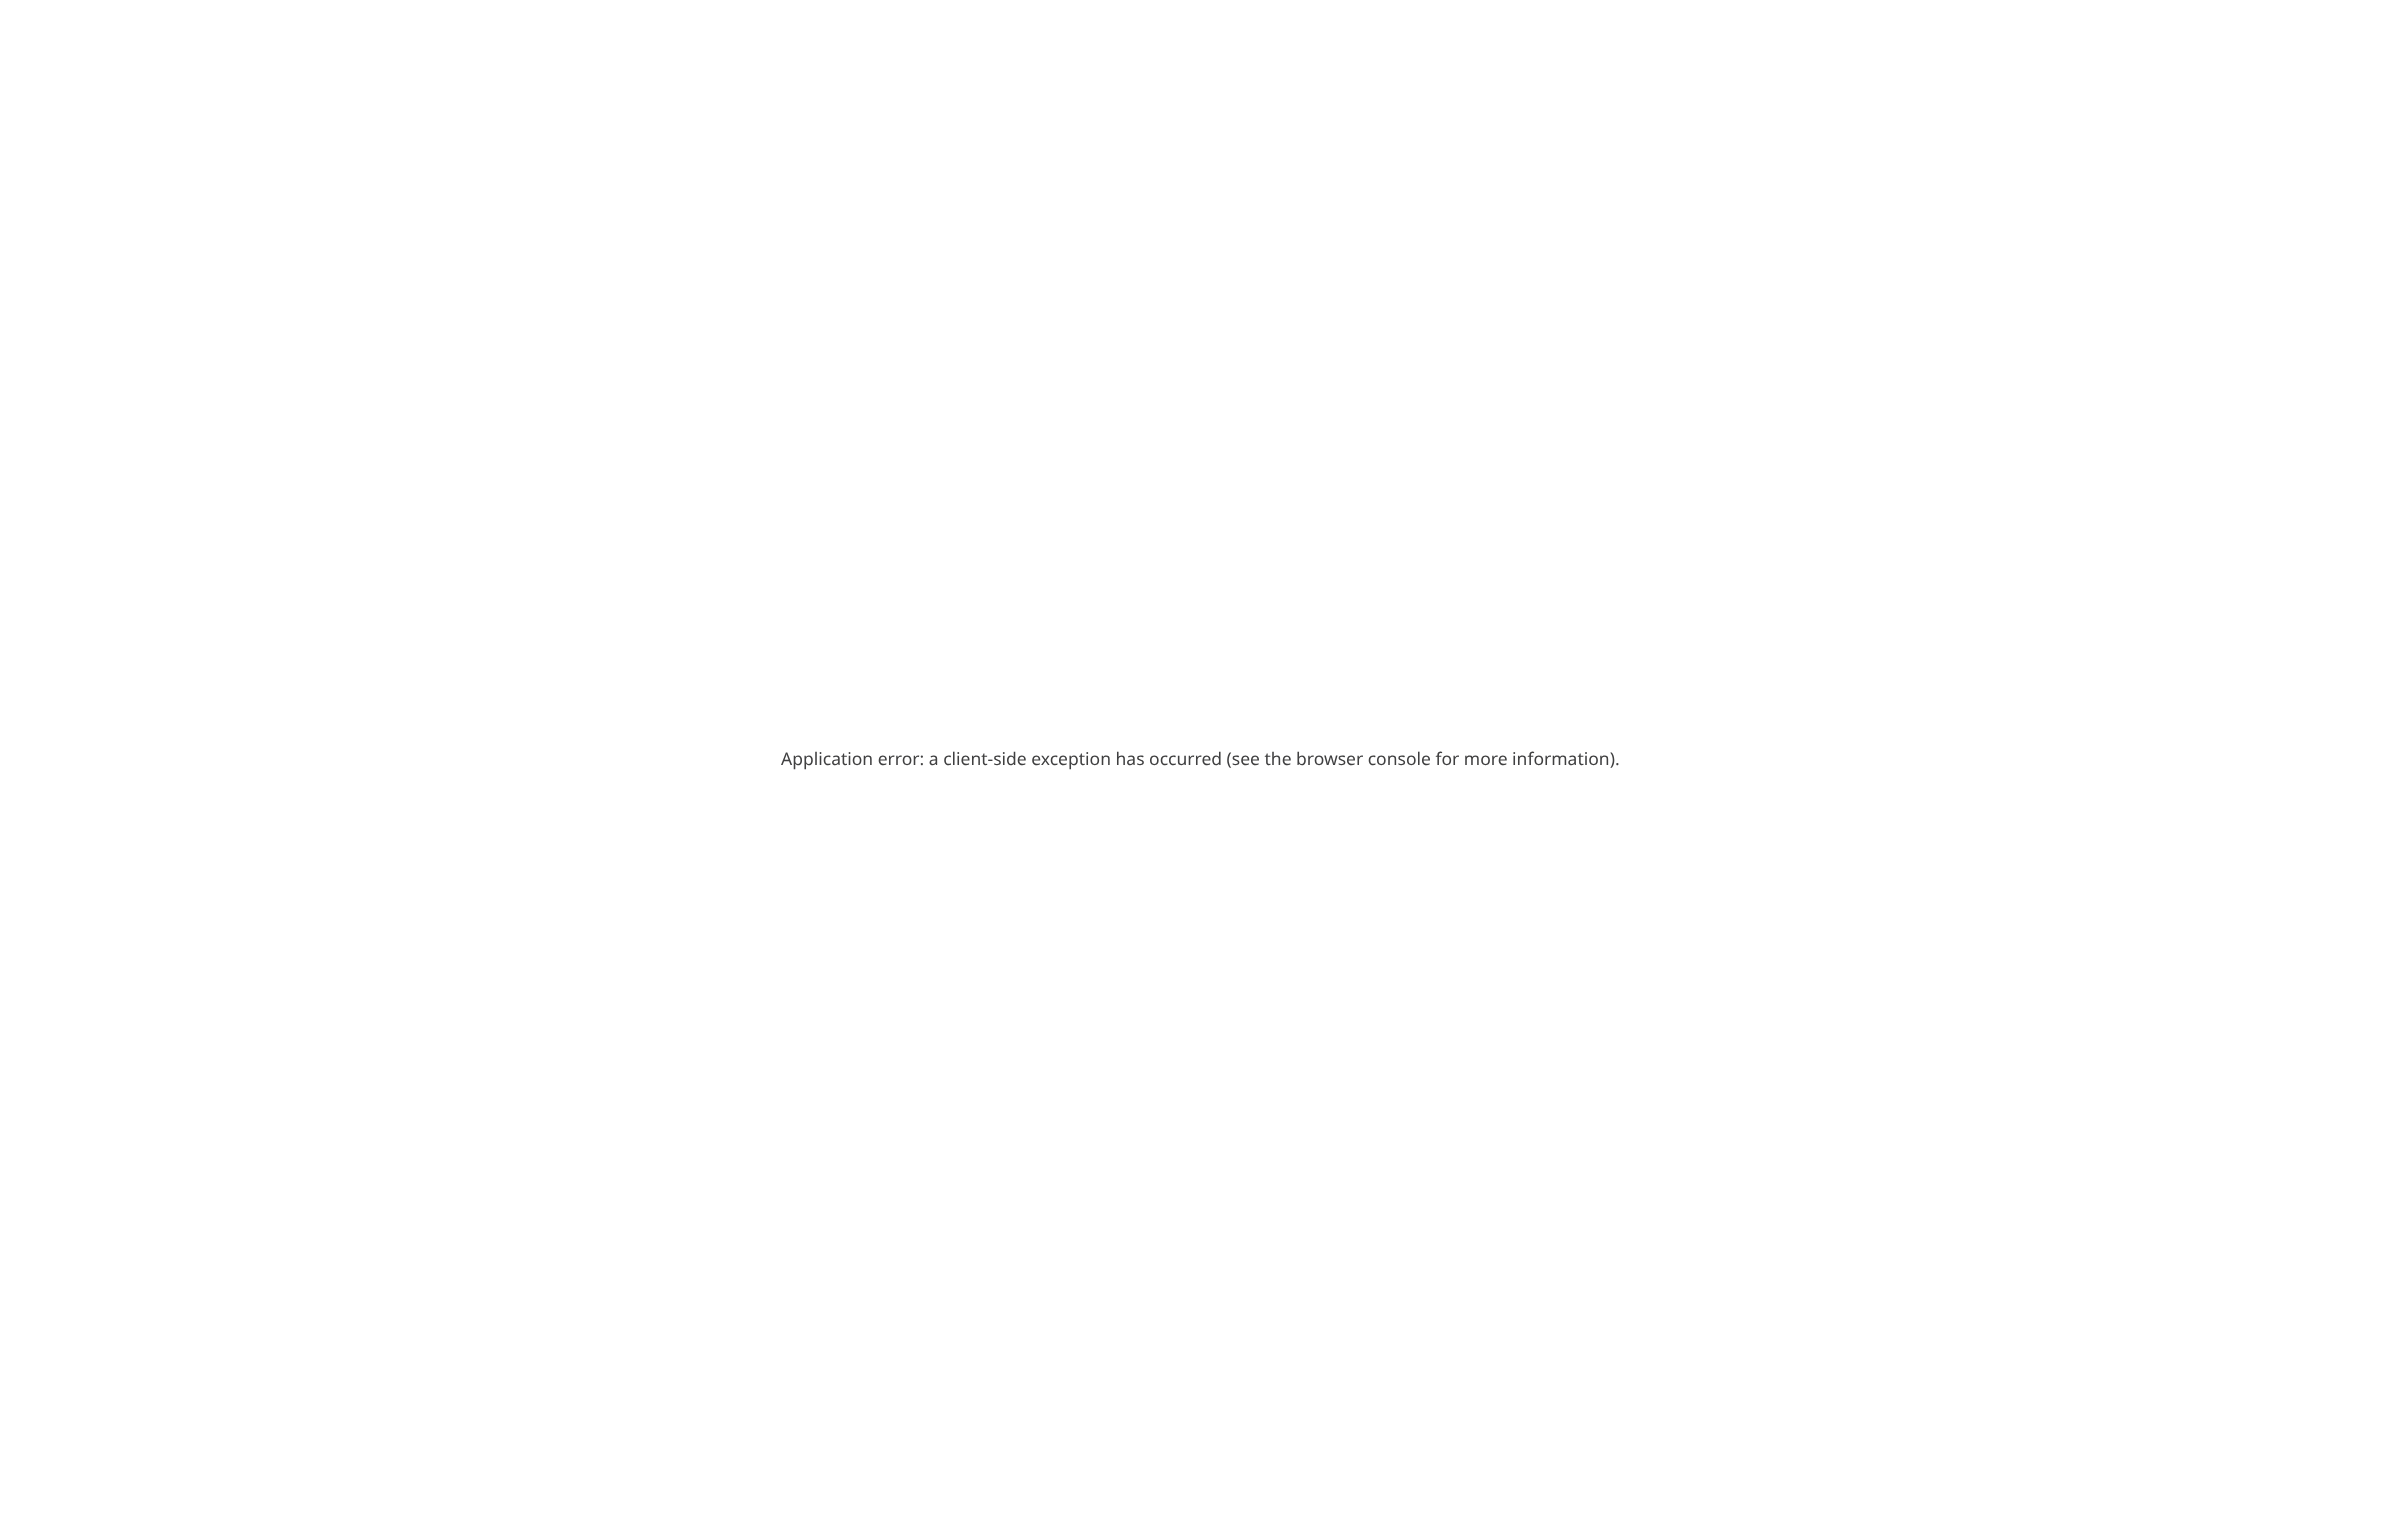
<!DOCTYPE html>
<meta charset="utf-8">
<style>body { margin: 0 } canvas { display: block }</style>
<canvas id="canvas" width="2401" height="1515"></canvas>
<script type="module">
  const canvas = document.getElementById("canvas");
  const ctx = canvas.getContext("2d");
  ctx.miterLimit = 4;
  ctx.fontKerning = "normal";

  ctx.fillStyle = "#ffffff";
  ctx.fillRect(0, 0, 2401, 1515);
  ctx.font = "17.5px Noto Sans";
  ctx.fillStyle = "#404041";
  ctx.fillText("Application error: a client-side exception has occurred (see the browser console for more information).", 781, 765);
</script>
